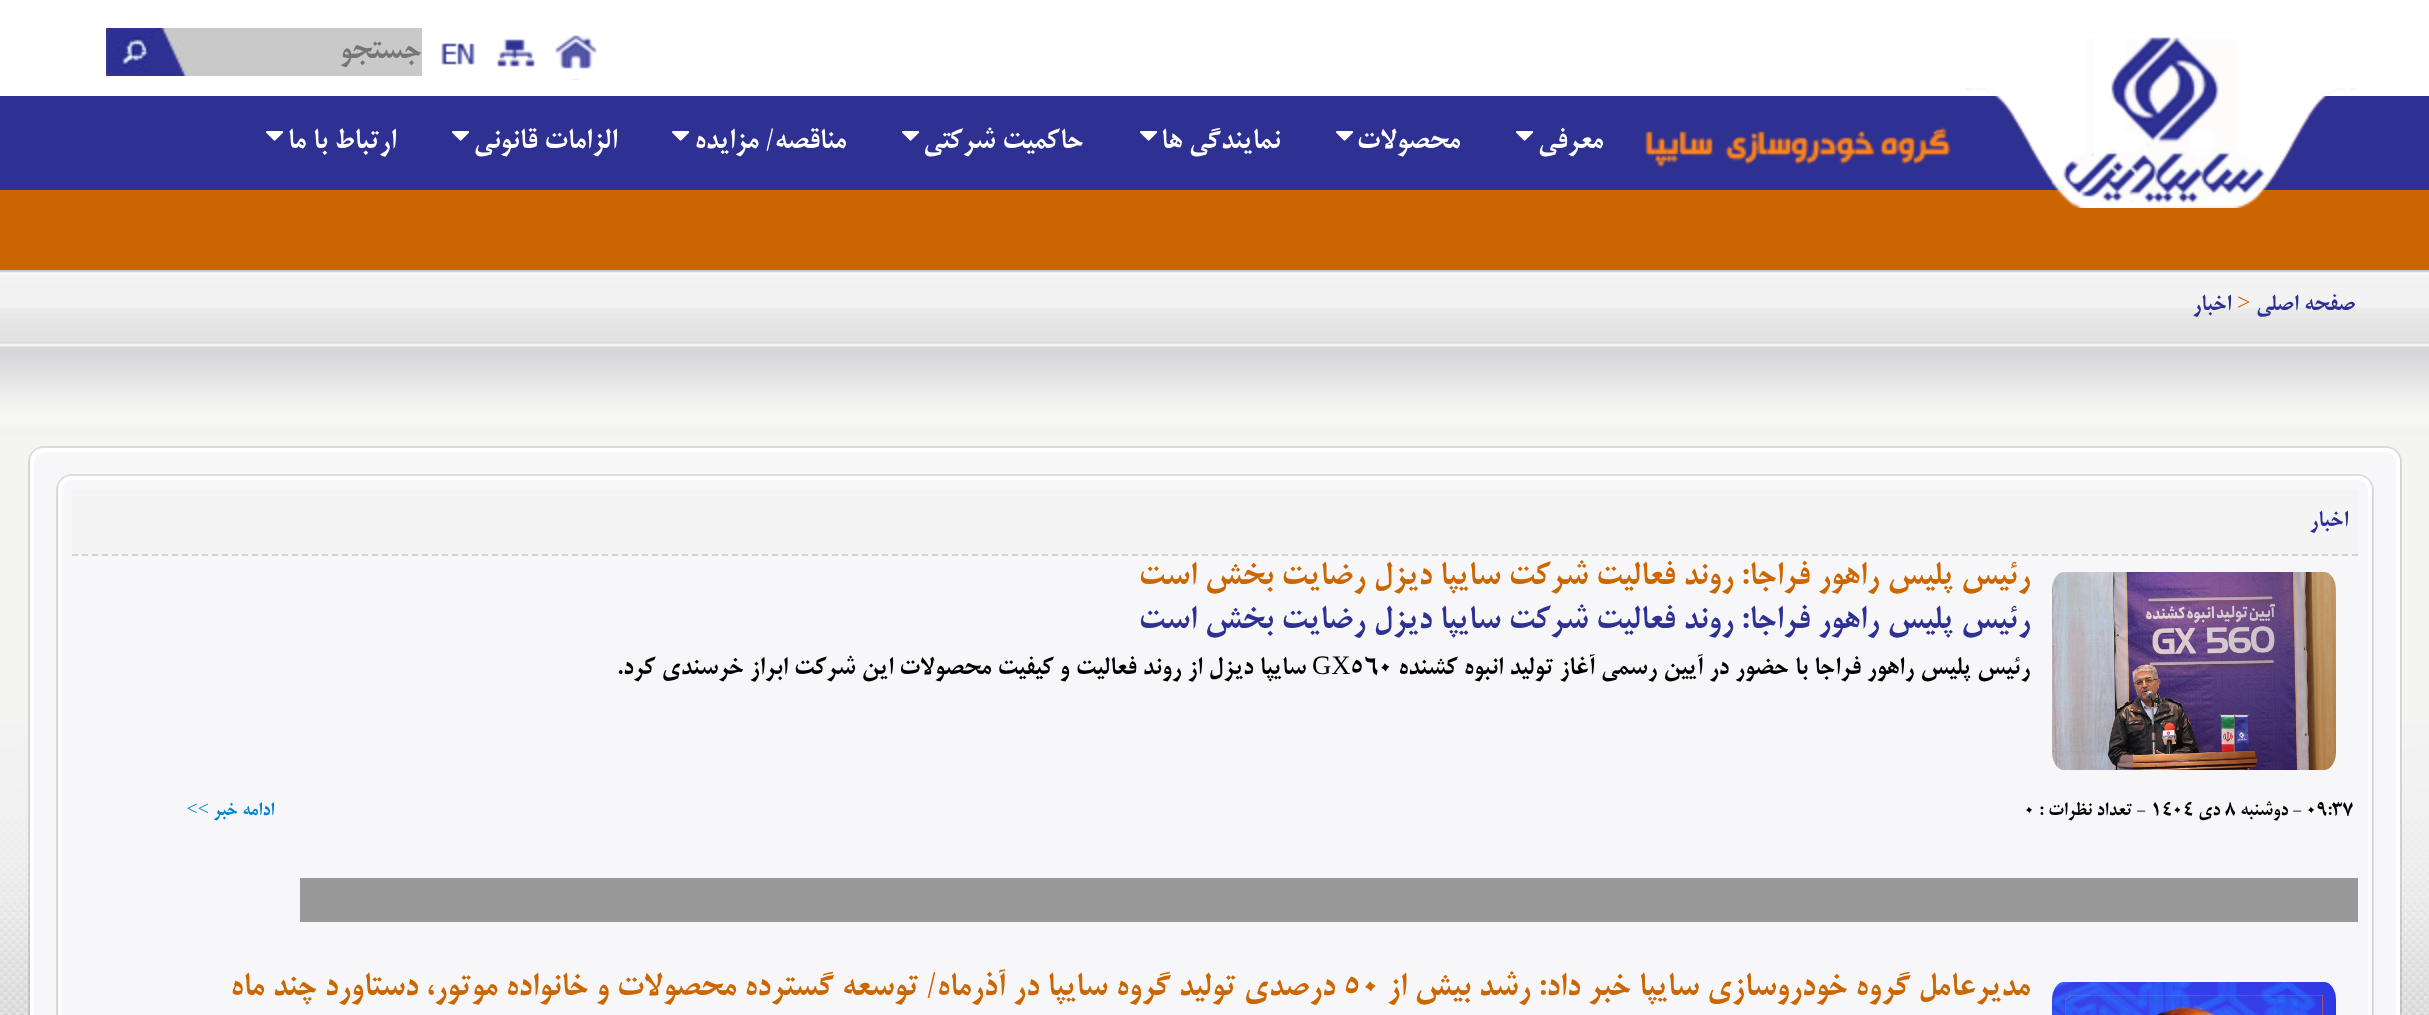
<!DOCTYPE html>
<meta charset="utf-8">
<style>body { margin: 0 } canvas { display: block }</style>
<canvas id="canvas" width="2429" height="1015"></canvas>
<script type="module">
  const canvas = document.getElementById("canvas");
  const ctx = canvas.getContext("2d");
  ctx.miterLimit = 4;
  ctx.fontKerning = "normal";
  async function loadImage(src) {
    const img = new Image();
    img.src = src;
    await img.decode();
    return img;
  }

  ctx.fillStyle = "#ffffff";
  ctx.fillRect(0, 0, 2429, 1015);
  ctx.fillStyle = "#2e3092";
  ctx.fillRect(0, 96, 2429, 94);
  ctx.fillStyle = "#cb6500";
  ctx.fillRect(0, 190, 2429, 80);
  ctx.drawImage(await loadImage("img1.png"), 1966, 37, 390, 171);
  ctx.drawImage(await loadImage("img2.png"), 1645, 127, 306, 40);
  ctx.drawImage(await loadImage("img3.png"), 555, 35, 42, 45);
  ctx.drawImage(await loadImage("img4.png"), 497, 39, 38, 28);
  ctx.drawImage(await loadImage("img5.png"), 441, 43, 34, 22);
  ctx.drawImage(await loadImage("img6.png"), 106, 28, 316, 48);
  ctx.direction = "rtl";
  ctx.font = "bold 32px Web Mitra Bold";
  ctx.fillStyle = "#757575";
  ctx.fillText("جستجو", 421, 58);
  ctx.font = "bold 30px Web Mitra Bold";
  ctx.fillStyle = "#ffffff";
  ctx.fillText("معرفی", 1603, 148);
  ctx.drawImage(await loadImage("img7.png"), 1516, 131, 18, 10);
  ctx.fillText("محصولات", 1460, 148);
  ctx.drawImage(await loadImage("img7.png"), 1336, 131, 18, 10);
  ctx.fillText("نمایندگی ها", 1280, 148);
  ctx.drawImage(await loadImage("img7.png"), 1140, 131, 18, 10);
  ctx.fillText("حاکمیت شرکتی", 1083, 148);
  ctx.drawImage(await loadImage("img7.png"), 902, 131, 18, 10);
  ctx.fillText("مناقصه/ مزایده", 846, 148);
  ctx.drawImage(await loadImage("img7.png"), 672, 131, 18, 10);
  ctx.fillText("الزامات قانونی", 617, 148);
  ctx.drawImage(await loadImage("img7.png"), 452, 131, 18, 10);
  ctx.fillText("ارتباط با ما", 396, 148);
  ctx.drawImage(await loadImage("img7.png"), 266, 131, 18, 10);
  ctx.drawImage(await loadImage("img8.png"), 0, 270, 2429, 745);
  ctx.font = "bold 24px Web Mitra Bold";
  ctx.fillStyle = "#2e3092";
  ctx.fillText("صفحه اصلی", 2355, 310);
  ctx.direction = "ltr";
  ctx.font = "24px Liberation Serif";
  ctx.fillStyle = "#cc6600";
  ctx.fillText(">", 2237, 310);
  ctx.direction = "rtl";
  ctx.font = "bold 24px Web Mitra Bold";
  ctx.fillStyle = "#2e3092";
  ctx.fillText("اخبار", 2231, 310);
  ctx.fillStyle = "rgba(0, 0, 2, 0.1)";
  ctx.filter = "blur(1px)";
  ctx.beginPath();
  ctx.roundRect(30, 450, 2370, 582, 14);
  ctx.fill();
  ctx.filter = "none";
  ctx.beginPath();
  ctx.roundRect(29, 447, 2372, 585, 15);
  ctx.strokeStyle = "rgba(0, 0, 2, 0.1)";
  ctx.lineWidth = 2;
  ctx.stroke();
  ctx.fillStyle = "#f7f7f9";
  ctx.beginPath();
  ctx.roundRect(32, 450, 2366, 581, 12);
  ctx.fill();
  ctx.strokeStyle = "#ffffff";
  ctx.lineWidth = 4;
  ctx.stroke();
  ctx.fillStyle = "rgba(0, 0, 2, 0.1)";
  ctx.filter = "blur(1px)";
  ctx.beginPath();
  ctx.roundRect(58, 478, 2314, 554, 14);
  ctx.fill();
  ctx.filter = "none";
  ctx.beginPath();
  ctx.roundRect(57, 475, 2316, 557, 15);
  ctx.strokeStyle = "rgba(0, 0, 2, 0.1)";
  ctx.lineWidth = 2;
  ctx.stroke();
  ctx.fillStyle = "#f7f7f9";
  ctx.beginPath();
  ctx.roundRect(60, 478, 2310, 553, 12);
  ctx.fill();
  ctx.strokeStyle = "#ffffff";
  ctx.lineWidth = 4;
  ctx.stroke();
  ctx.fillStyle = "#f4f4f4";
  ctx.fillRect(72, 490, 2286, 66);
  ctx.beginPath();
  ctx.moveTo(72, 555);
  ctx.lineTo(2358, 555);
  ctx.strokeStyle = "#d4d4d2";
  ctx.lineWidth = 2;
  ctx.setLineDash([6, 4]);
  ctx.stroke();
  ctx.fillStyle = "#2e3092";
  ctx.fillText("اخبار", 2348, 526);
  ctx.drawImage(await loadImage("img9.png"), 2052, 572, 284, 198);
  ctx.font = "bold 34.7px Web Mitra Bold";
  ctx.fillStyle = "#cc6600";
  ctx.fillText("رئیس پلیس راهور فراجا: روند فعالیت شرکت سایپا دیزل رضایت بخش است", 2030, 584);
  ctx.fillStyle = "#2e3092";
  ctx.fillText("رئیس پلیس راهور فراجا: روند فعالیت شرکت سایپا دیزل رضایت بخش است", 2030, 628);
  ctx.font = "bold 26.7px Web Mitra Bold";
  ctx.fillStyle = "#000000";
  ctx.fillText("رئیس پلیس راهور فراجا با حضور در آیین رسمی آغاز تولید انبوه کشنده", 2030, 674);
  ctx.direction = "ltr";
  ctx.fillText("560", 1350, 674);
  ctx.font = "26.7px Liberation Serif";
  ctx.fillText("GX", 1312, 674);
  ctx.direction = "rtl";
  ctx.font = "bold 26.7px Web Mitra Bold";
  ctx.fillText("سایپا دیزل از روند فعالیت و کیفیت محصولات این شرکت ابراز خرسندی کرد.", 1306, 674);
  ctx.direction = "ltr";
  ctx.font = "bold 20px Web Mitra Bold";
  ctx.fillText("٠٩:٣٧", 2306, 815);
  ctx.direction = "rtl";
  ctx.fillText("- دوشنبه", 2302, 815);
  ctx.direction = "ltr";
  ctx.fillText("٨", 2225, 815);
  ctx.direction = "rtl";
  ctx.fillText("دی", 2220, 815);
  ctx.direction = "ltr";
  ctx.fillText("١٤٠٤", 2151, 815);
  ctx.direction = "rtl";
  ctx.fillText("- تعداد نظرات :", 2146, 815);
  ctx.direction = "ltr";
  ctx.fillText("٠", 2024, 815);
  ctx.direction = "rtl";
  ctx.fillStyle = "#0088cc";
  ctx.fillText("ادامه خبر", 274, 815);
  ctx.font = "20px Liberation Serif";
  ctx.fillText(">>", 209, 815);
  ctx.fillStyle = "#999999";
  ctx.fillRect(300, 878, 2058, 44);
  ctx.drawImage(await loadImage("img10.png"), 2052, 982, 284, 33);
  ctx.font = "bold 34.7px Web Mitra Bold";
  ctx.fillStyle = "#cc6600";
  ctx.fillText("مدیرعامل گروه خودروسازی سایپا خبر داد: رشد بیش از", 2030, 995);
  ctx.direction = "ltr";
  ctx.fillText("۵۰", 1343, 995);
  ctx.direction = "rtl";
  ctx.fillText("درصدی تولید گروه سایپا در آذرماه/ توسعه گسترده محصولات و خانواده موتور، دستاورد چند ماه", 1335, 995);
</script>
